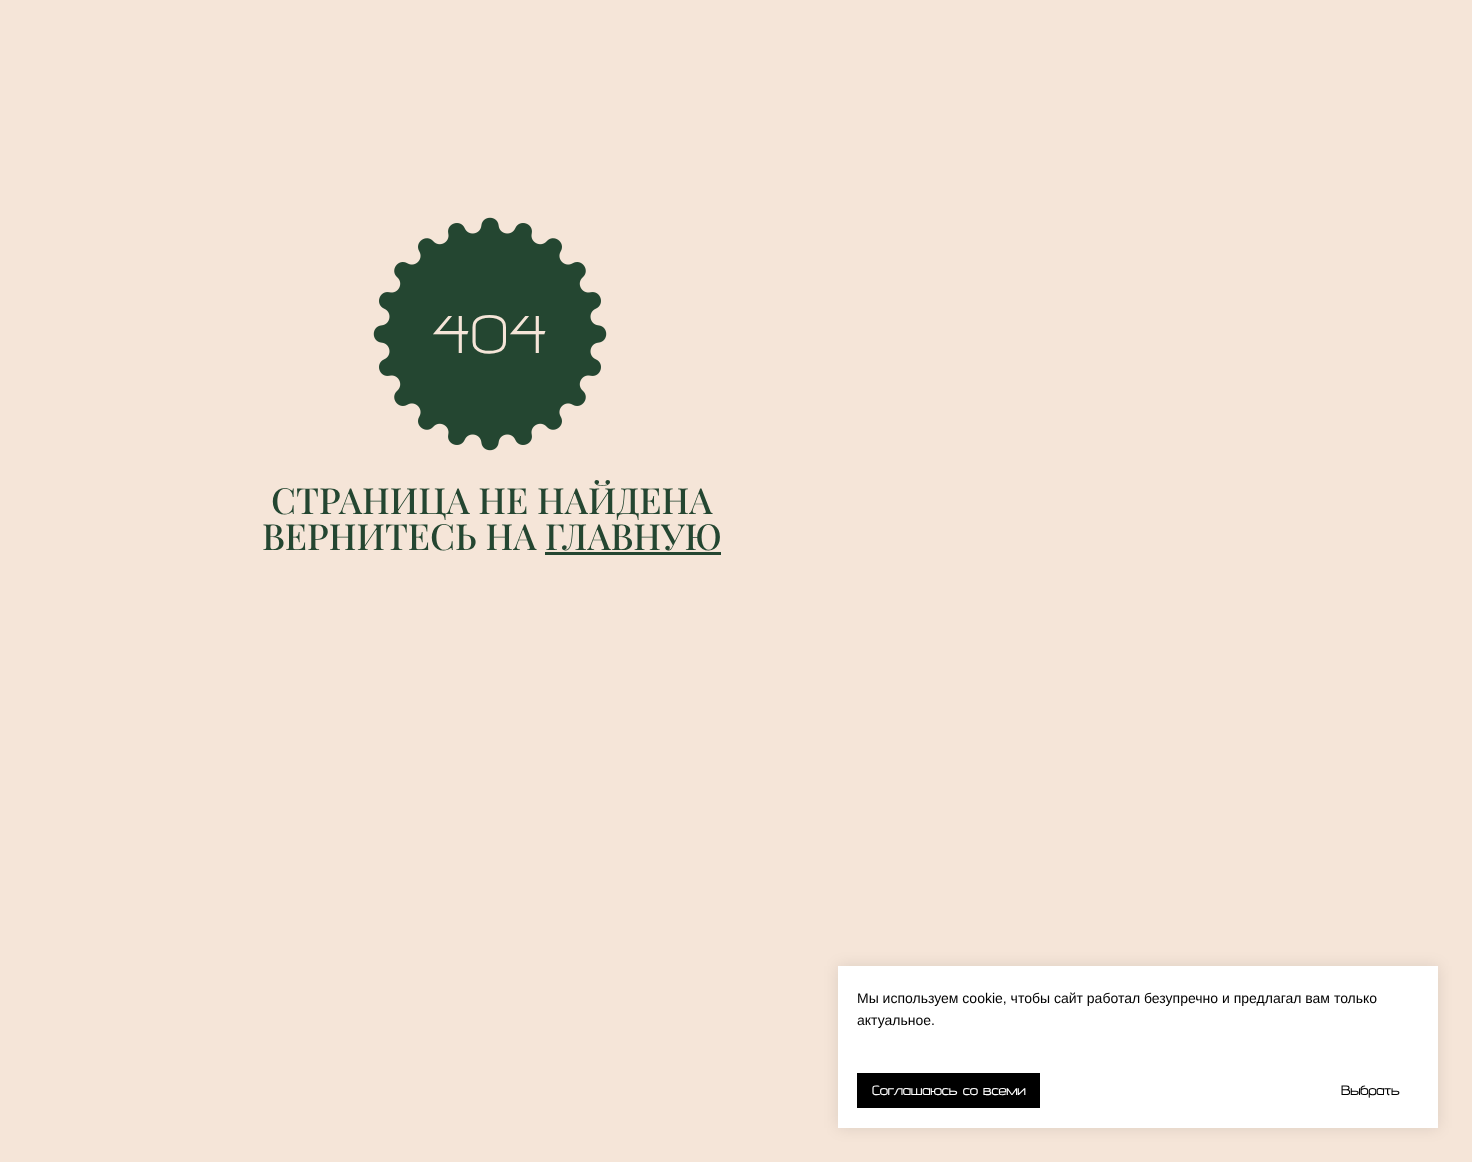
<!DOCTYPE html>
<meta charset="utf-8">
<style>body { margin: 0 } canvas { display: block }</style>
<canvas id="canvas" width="1472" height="1162"></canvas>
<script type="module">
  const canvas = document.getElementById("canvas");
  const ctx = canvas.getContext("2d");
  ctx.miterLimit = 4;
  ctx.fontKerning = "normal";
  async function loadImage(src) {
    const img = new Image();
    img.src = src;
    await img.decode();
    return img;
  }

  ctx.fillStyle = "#f5e5d8";
  ctx.fillRect(0, 0, 1472, 1162);
  ctx.drawImage(await loadImage("img1.png"), 373, 217, 234, 234);
  ctx.font = "53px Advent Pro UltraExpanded";
  ctx.fillText("404", 432, 353);
  ctx.font = "500 36px Playfair Display";
  ctx.fillStyle = "#244631";
  ctx.fillText("СТРАНИЦА НЕ НАЙДЕНА", 271, 514);
  ctx.fillText("ВЕРНИТЕСЬ НА ГЛАВНУЮ", 262, 550);
  ctx.fillRect(545, 552, 176, 3);
  ctx.fillStyle = "rgba(0, 0, 0, 0.1)";
  ctx.filter = "blur(7.5px)";
  ctx.beginPath();
  ctx.rect(838, 966, 600, 162);
  ctx.fill();
  ctx.filter = "none";
  ctx.fillStyle = "#ffffff";
  ctx.fillRect(838, 966, 600, 162);
  ctx.font = "14px Liberation Sans";
  ctx.fillStyle = "#000000";
  ctx.fillText("Мы используем cookie, чтобы сайт работал безупречно и предлагал вам только", 857, 1003);
  ctx.fillText("актуальное.", 857, 1025);
  ctx.fillRect(857, 1073, 183, 35);
  ctx.font = "bold 13px Advent Pro UltraExpanded";
  ctx.fillStyle = "#ffffff";
  ctx.fillText("Соглашаюсь со всеми", 872, 1095);
  ctx.fillStyle = "#000000";
  ctx.fillText("Выбрать", 1341, 1095);
</script>
